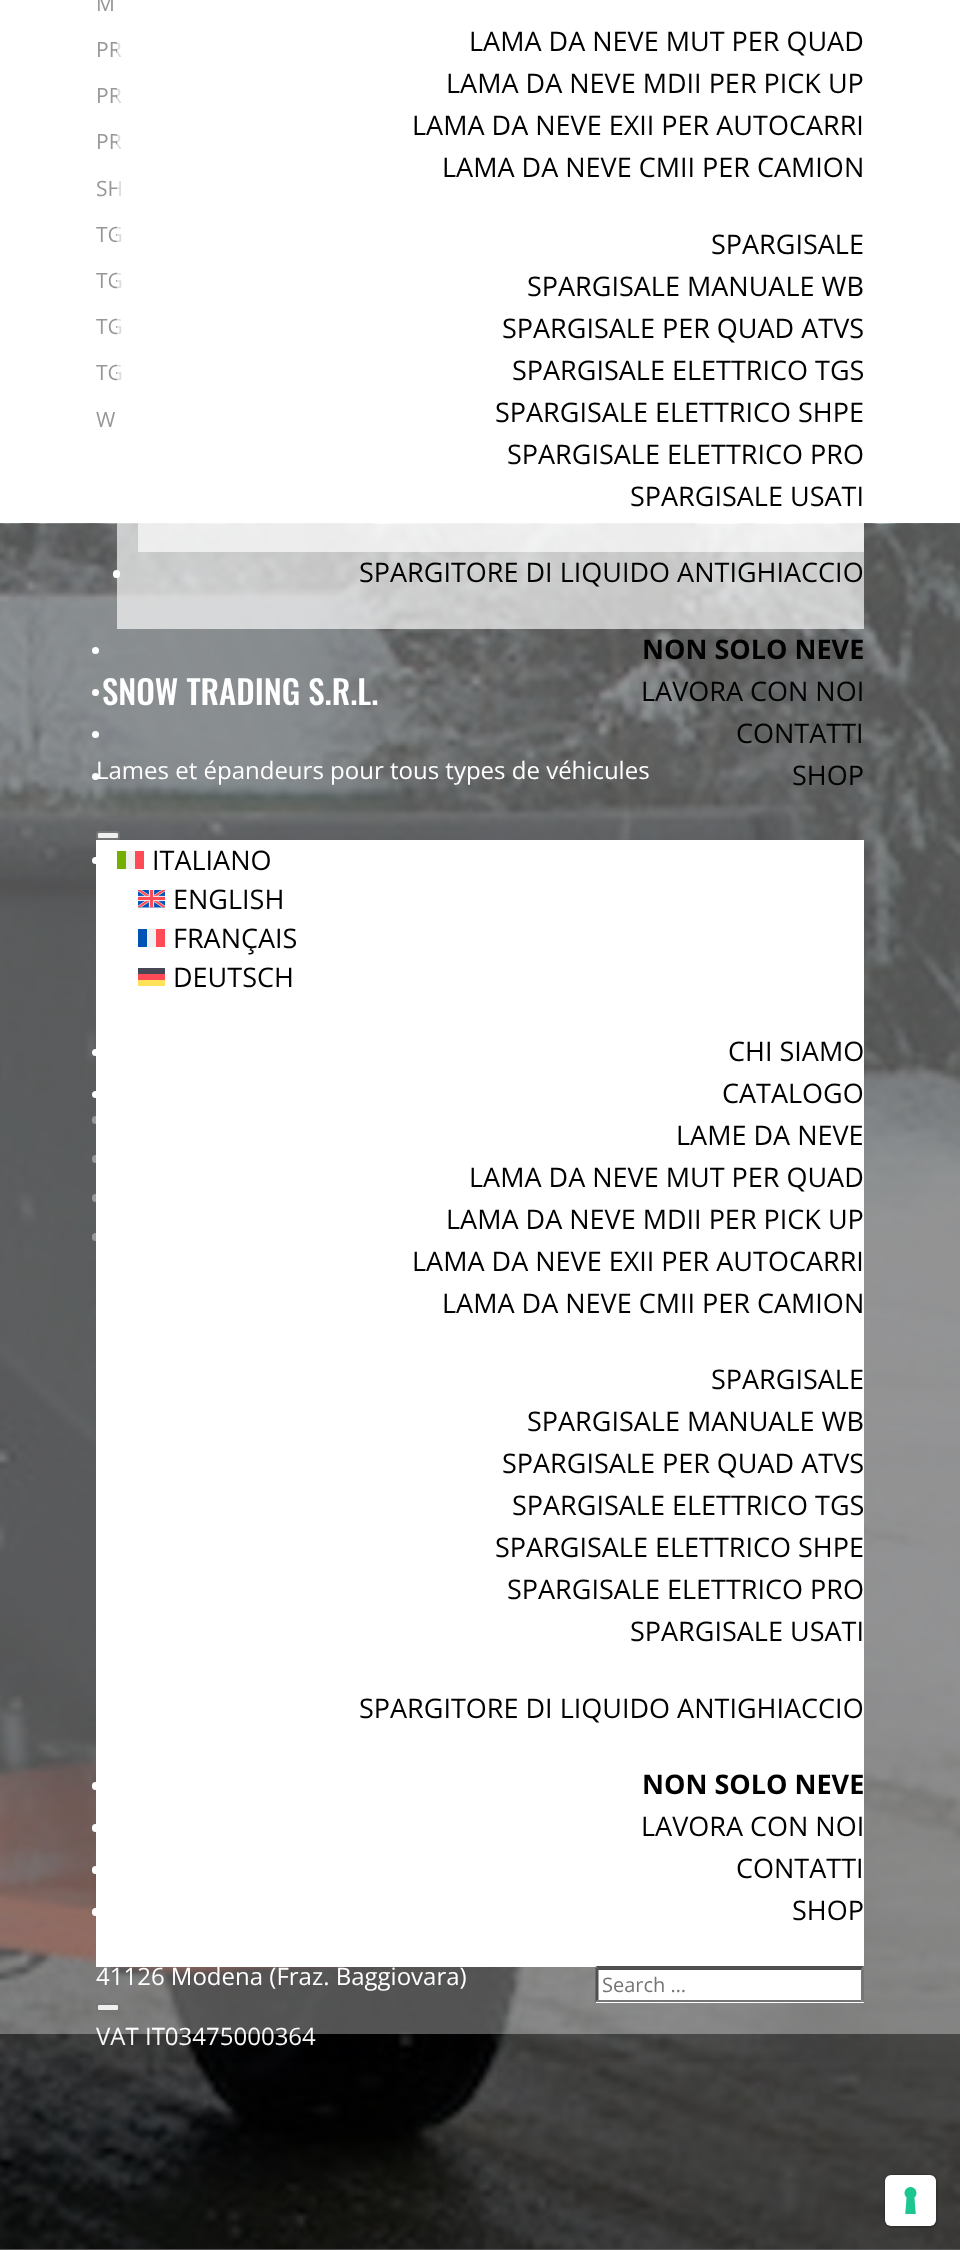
<!DOCTYPE html>
<meta charset="utf-8">
<style>body { margin: 0 } canvas { display: block }</style>
<canvas id="canvas" width="960" height="2250"></canvas>
<script type="module">
  const canvas = document.getElementById("canvas");
  const ctx = canvas.getContext("2d");
  ctx.miterLimit = 4;
  ctx.fontKerning = "normal";
  async function loadImage(src) {
    const img = new Image();
    img.src = src;
    await img.decode();
    return img;
  }

  ctx.fillStyle = "#ffffff";
  ctx.fillRect(0, 0, 960, 2250);
  ctx.font = "21px Open Sans";
  ctx.fillStyle = "#666666";
  ctx.fillText("M", 96, 11);
  ctx.fillText("PR", 96, 57);
  ctx.fillText("PR", 96, 103);
  ctx.fillText("PR", 96, 149);
  ctx.fillText("SH", 96, 196);
  ctx.fillText("TG", 96, 242);
  ctx.fillText("TG", 96, 288);
  ctx.fillText("TG", 96, 334);
  ctx.fillText("TG", 96, 380);
  ctx.fillText("W", 96, 427);
  ctx.drawImage(await loadImage("img1.png"), 0, 523, 960, 1727);
  ctx.fillStyle = "rgba(0, 0, 0, 0.6)";
  ctx.fillRect(0, 524, 960, 918);
  ctx.font = "500 33px Oswald";
  ctx.fillStyle = "#ffffff";
  ctx.fillText("SNOW TRADING S.R.L.", 102, 705);
  ctx.font = "24px Open Sans";
  ctx.fillText("Lames et épandeurs pour tous types de véhicules", 96, 779);
  ctx.fillStyle = "#666666";
  ctx.beginPath();
  ctx.roundRect(92, 1116, 7, 8, 3.5);
  ctx.fill();
  ctx.beginPath();
  ctx.roundRect(92, 1155, 7, 8, 3.5);
  ctx.fill();
  ctx.beginPath();
  ctx.roundRect(92, 1194, 7, 8, 3.5);
  ctx.fill();
  ctx.beginPath();
  ctx.roundRect(92, 1233, 7, 8, 3.5);
  ctx.fill();
  ctx.fillStyle = "rgba(2, 2, 2, 0.61)";
  ctx.fillRect(0, 1442, 960, 808);
  ctx.fillStyle = "#ffffff";
  ctx.fillText("41126 Modena (Fraz. Baggiovara)", 96, 1985);
  ctx.fillText("VAT IT03475000364", 96, 2045);
  ctx.save();
  ctx.beginPath();
  ctx.rect(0, 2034, 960, 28);
  ctx.clip();
  ctx.fillStyle = "rgba(0, 0, 0, 0.08)";
  ctx.filter = "blur(37.5px)";
  ctx.beginPath();
  ctx.rect(0, -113, 960, 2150);
  ctx.fill();
  ctx.filter = "none";
  ctx.restore();
  ctx.fillStyle = "rgba(255, 255, 255, 0.32)";
  ctx.fillRect(0, 0, 960, 2034);
  ctx.fillStyle = "rgba(255, 255, 255, 0.66)";
  ctx.fillRect(117, 42, 747, 587);
  ctx.font = "27px Open Sans";
  ctx.fillStyle = "#000000";
  ctx.fillText("LAMA DA NEVE MUT PER QUAD", 469, 51);
  ctx.fillText("LAMA DA NEVE MDII PER PICK UP", 446, 93);
  ctx.fillText("LAMA DA NEVE EXII PER AUTOCARRI", 412, 135);
  ctx.fillText("LAMA DA NEVE CMII PER CAMION", 442, 177);
  ctx.fillStyle = "#ffffff";
  ctx.beginPath();
  ctx.arc(116.5, 245.5, 3.5, 0, Math.PI * 2);
  ctx.fill();
  ctx.fillStyle = "#000000";
  ctx.fillText("SPARGISALE", 711, 254);
  ctx.fillStyle = "rgba(255, 255, 255, 0.66)";
  ctx.fillRect(138, 523, 726, 29);
  ctx.fillStyle = "#000000";
  ctx.fillText("SPARGISALE MANUALE WB", 527, 296);
  ctx.fillText("SPARGISALE PER QUAD ATVS", 502, 338);
  ctx.fillText("SPARGISALE ELETTRICO TGS", 512, 380);
  ctx.fillText("SPARGISALE ELETTRICO SHPE", 495, 422);
  ctx.fillText("SPARGISALE ELETTRICO PRO", 507, 464);
  ctx.fillText("SPARGISALE USATI", 630, 506);
  ctx.fillStyle = "#ffffff";
  ctx.beginPath();
  ctx.roundRect(113, 570, 7, 8, 3.5);
  ctx.fill();
  ctx.fillStyle = "#000000";
  ctx.fillText("SPARGITORE DI LIQUIDO ANTIGHIACCIO", 359, 582);
  ctx.fillStyle = "#ffffff";
  ctx.beginPath();
  ctx.arc(95.5, 650.5, 3.5, 0, Math.PI * 2);
  ctx.fill();
  ctx.font = "bold 27px Open Sans";
  ctx.fillStyle = "#000000";
  ctx.fillText("NON SOLO NEVE", 642, 659);
  ctx.fillStyle = "#ffffff";
  ctx.beginPath();
  ctx.arc(95.5, 692.5, 3.5, 0, Math.PI * 2);
  ctx.fill();
  ctx.font = "27px Open Sans";
  ctx.fillStyle = "#000000";
  ctx.fillText("LAVORA CON NOI", 641, 701);
  ctx.fillStyle = "#ffffff";
  ctx.beginPath();
  ctx.arc(95.5, 734.5, 3.5, 0, Math.PI * 2);
  ctx.fill();
  ctx.fillStyle = "#000000";
  ctx.fillText("CONTATTI", 736, 743);
  ctx.fillStyle = "#ffffff";
  ctx.beginPath();
  ctx.arc(95.5, 776.5, 3.5, 0, Math.PI * 2);
  ctx.fill();
  ctx.fillStyle = "#000000";
  ctx.fillText("SHOP", 792, 785);
  ctx.fillStyle = "#efefef";
  ctx.beginPath();
  ctx.roundRect(97, 832, 22, 7, 2);
  ctx.fill();
  ctx.strokeStyle = "#767676";
  ctx.lineWidth = 2;
  ctx.stroke();
  ctx.fillStyle = "#ffffff";
  ctx.fillRect(96, 840, 768, 1127);
  ctx.beginPath();
  ctx.arc(95.5, 860.5, 3.5, 0, Math.PI * 2);
  ctx.fill();
  ctx.fillStyle = "#f0f0f0";
  ctx.fillRect(126, 851, 9, 18);
  ctx.fillStyle = "#ff4b55";
  ctx.fillRect(135, 851, 9, 18);
  ctx.fillStyle = "#73af00";
  ctx.fillRect(117, 851, 9, 18);
  ctx.fillStyle = "#000000";
  ctx.fillText("ITALIANO", 152, 870);
  ctx.drawImage(await loadImage("img2.png"), 138, 890, 27, 18);
  ctx.fillText("ENGLISH", 173, 909);
  ctx.fillStyle = "#f0f0f0";
  ctx.fillRect(147, 929, 9, 18);
  ctx.fillStyle = "#ff4b55";
  ctx.fillRect(156, 929, 9, 18);
  ctx.fillStyle = "#0052b4";
  ctx.fillRect(138, 929, 9, 18);
  ctx.fillStyle = "#000000";
  ctx.fillText("FRANÇAIS", 173, 948);
  ctx.fillStyle = "#ff4b55";
  ctx.fillRect(138, 974, 27, 6);
  ctx.fillStyle = "#ffe15a";
  ctx.fillRect(138, 980, 27, 6);
  ctx.fillStyle = "#464655";
  ctx.fillRect(138, 968, 27, 6);
  ctx.fillStyle = "#000000";
  ctx.fillText("DEUTSCH", 173, 987);
  ctx.fillStyle = "#ffffff";
  ctx.beginPath();
  ctx.arc(95.5, 1052.5, 3.5, 0, Math.PI * 2);
  ctx.fill();
  ctx.fillStyle = "#000000";
  ctx.fillText("CHI SIAMO", 728, 1061);
  ctx.fillStyle = "#ffffff";
  ctx.beginPath();
  ctx.arc(95.5, 1094.5, 3.5, 0, Math.PI * 2);
  ctx.fill();
  ctx.fillStyle = "#000000";
  ctx.fillText("CATALOGO", 722, 1103);
  ctx.fillText("LAME DA NEVE", 676, 1145);
  ctx.fillText("LAMA DA NEVE MUT PER QUAD", 469, 1187);
  ctx.fillText("LAMA DA NEVE MDII PER PICK UP", 446, 1229);
  ctx.fillText("LAMA DA NEVE EXII PER AUTOCARRI", 412, 1271);
  ctx.fillText("LAMA DA NEVE CMII PER CAMION", 442, 1313);
  ctx.fillText("SPARGISALE", 711, 1389);
  ctx.fillText("SPARGISALE MANUALE WB", 527, 1431);
  ctx.fillText("SPARGISALE PER QUAD ATVS", 502, 1473);
  ctx.fillText("SPARGISALE ELETTRICO TGS", 512, 1515);
  ctx.fillText("SPARGISALE ELETTRICO SHPE", 495, 1557);
  ctx.fillText("SPARGISALE ELETTRICO PRO", 507, 1599);
  ctx.fillText("SPARGISALE USATI", 630, 1641);
  ctx.fillText("SPARGITORE DI LIQUIDO ANTIGHIACCIO", 359, 1718);
  ctx.fillStyle = "#ffffff";
  ctx.beginPath();
  ctx.roundRect(92, 1782, 7, 8, 3.5);
  ctx.fill();
  ctx.font = "bold 27px Open Sans";
  ctx.fillStyle = "#000000";
  ctx.fillText("NON SOLO NEVE", 642, 1794);
  ctx.fillStyle = "#ffffff";
  ctx.beginPath();
  ctx.roundRect(92, 1824, 7, 8, 3.5);
  ctx.fill();
  ctx.font = "27px Open Sans";
  ctx.fillStyle = "#000000";
  ctx.fillText("LAVORA CON NOI", 641, 1836);
  ctx.fillStyle = "#ffffff";
  ctx.beginPath();
  ctx.roundRect(92, 1866, 7, 8, 3.5);
  ctx.fill();
  ctx.fillStyle = "#000000";
  ctx.fillText("CONTATTI", 736, 1878);
  ctx.fillStyle = "#ffffff";
  ctx.beginPath();
  ctx.roundRect(92, 1908, 7, 8, 3.5);
  ctx.fill();
  ctx.fillStyle = "#000000";
  ctx.fillText("SHOP", 792, 1920);
  ctx.fillStyle = "#ffffff";
  ctx.fillRect(596, 1967, 268, 36);
  ctx.fillStyle = "#4f4f4f";
  ctx.beginPath();
  ctx.moveTo(596, 1966);
  ctx.lineTo(864, 1966);
  ctx.lineTo(861, 1970);
  ctx.lineTo(598, 1970);
  ctx.closePath();
  ctx.fill();
  ctx.fillStyle = "#767676";
  ctx.beginPath();
  ctx.moveTo(864, 1966.5);
  ctx.lineTo(864, 2002.5);
  ctx.lineTo(861, 1999.5);
  ctx.lineTo(861, 1969.5);
  ctx.closePath();
  ctx.fill();
  ctx.beginPath();
  ctx.moveTo(864, 2002);
  ctx.lineTo(596, 2002);
  ctx.lineTo(598, 2000);
  ctx.lineTo(861, 2000);
  ctx.closePath();
  ctx.fill();
  ctx.fillStyle = "#4f4f4f";
  ctx.beginPath();
  ctx.moveTo(595.5, 2002.5);
  ctx.lineTo(595.5, 1966.5);
  ctx.lineTo(598.5, 1969.5);
  ctx.lineTo(598.5, 1999.5);
  ctx.closePath();
  ctx.fill();
  ctx.font = "20px Open Sans";
  ctx.fillStyle = "#757575";
  ctx.fillText("Search …", 602, 1992);
  ctx.fillStyle = "#efefef";
  ctx.beginPath();
  ctx.roundRect(97, 2004, 22, 7, 2);
  ctx.fill();
  ctx.stroke();
  ctx.beginPath();
  ctx.roundRect(885, 2175, 52, 52, 7);
  ctx.strokeStyle = "rgba(0, 0, 0, 0.15)";
  ctx.stroke();
  ctx.fillStyle = "#ffffff";
  ctx.beginPath();
  ctx.roundRect(885, 2175, 51, 51, 6);
  ctx.fill();
  ctx.drawImage(await loadImage("img3.png"), 904, 2187, 13, 27);
</script>
